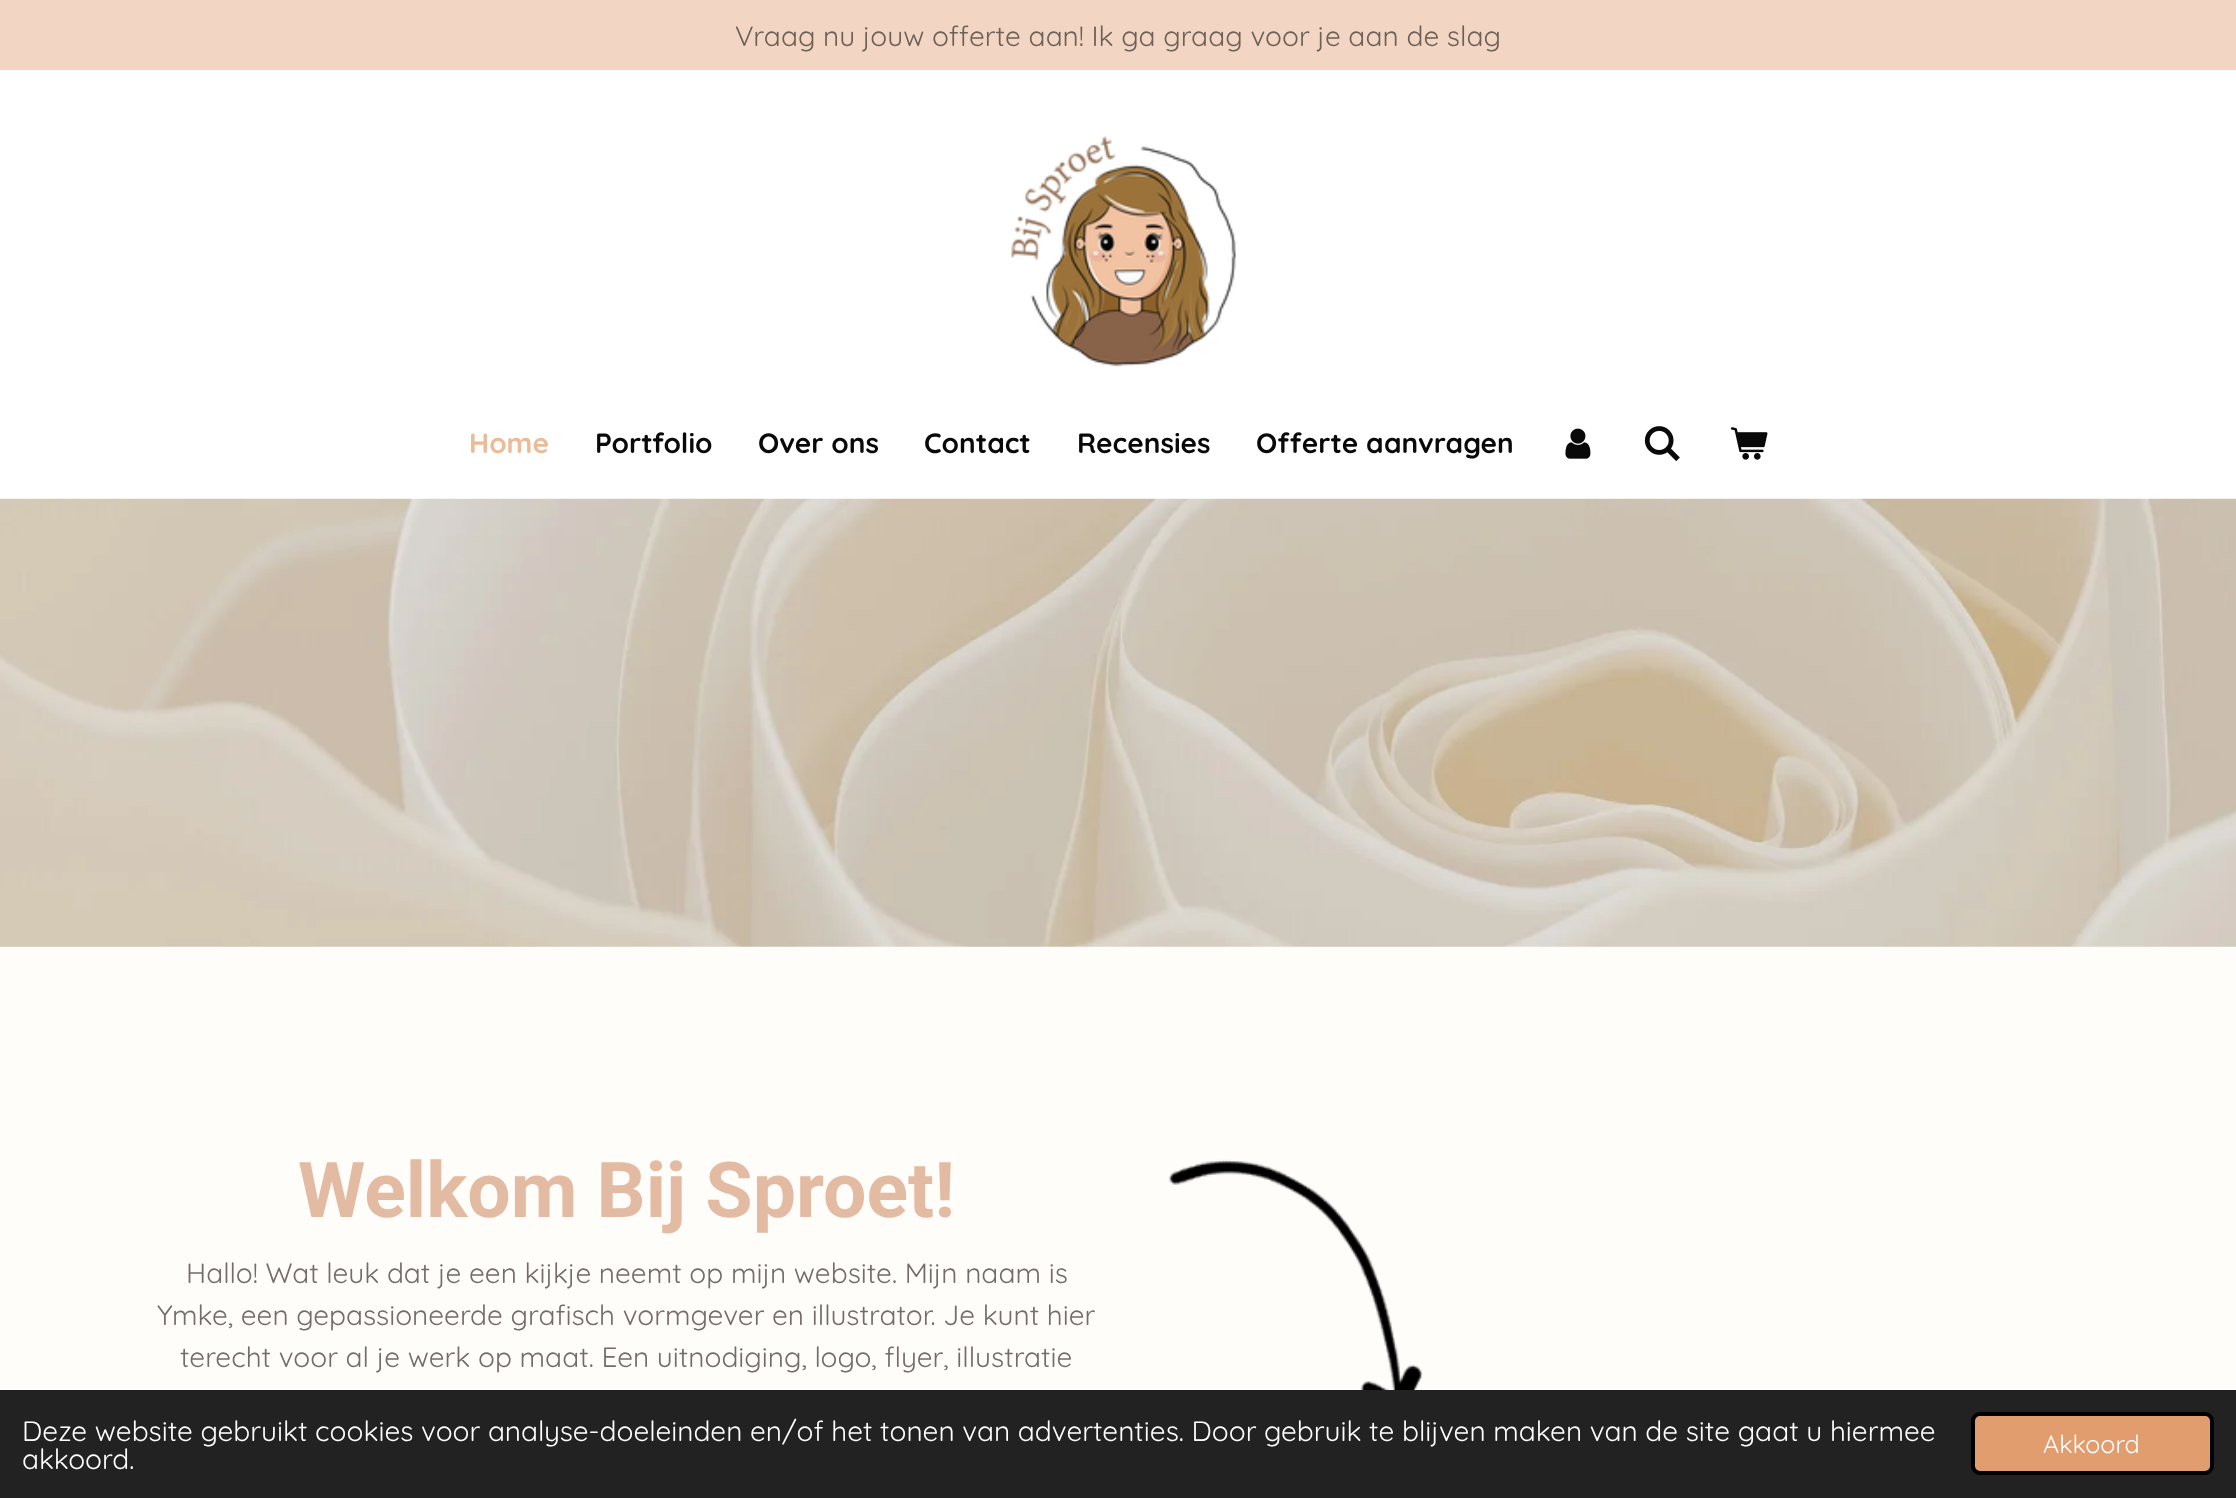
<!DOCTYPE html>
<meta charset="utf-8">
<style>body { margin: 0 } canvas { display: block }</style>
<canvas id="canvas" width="2236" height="1498"></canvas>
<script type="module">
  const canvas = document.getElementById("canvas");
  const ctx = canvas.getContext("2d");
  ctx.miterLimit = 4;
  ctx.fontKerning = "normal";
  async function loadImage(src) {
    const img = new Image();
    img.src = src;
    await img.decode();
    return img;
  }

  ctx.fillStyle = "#fffdfa";
  ctx.fillRect(0, 0, 2236, 1498);
  ctx.fillStyle = "#f2d5c2";
  ctx.fillRect(0, 0, 2236, 70);
  ctx.font = "28px Quicksand";
  ctx.fillStyle = "#6d6057";
  ctx.fillText("Vraag nu jouw offerte aan! Ik ga graag voor je aan de slag", 735, 46);
  ctx.fillStyle = "#ffffff";
  ctx.fillRect(0, 70, 2236, 429);
  ctx.drawImage(await loadImage("img1.png"), 1011, 136, 225, 231);
  ctx.font = "bold 28px Quicksand";
  ctx.fillStyle = "#ebba99";
  ctx.fillText("Home", 469, 453);
  ctx.fillStyle = "#090909";
  ctx.fillText("Portfolio", 595, 453);
  ctx.fillText("Over ons", 758, 453);
  ctx.fillText("Contact", 924, 453);
  ctx.fillText("Recensies", 1077, 453);
  ctx.fillText("Offerte aanvragen", 1256, 453);
  ctx.drawImage(await loadImage("img2.png"), 1565, 428, 26, 31);
  ctx.drawImage(await loadImage("img3.png"), 1644, 426, 36, 36);
  ctx.drawImage(await loadImage("img4.png"), 1730, 427, 38, 33);
  ctx.drawImage(await loadImage("img5.png"), 0, 498, 2236, 449);
  ctx.font = "bold 77px Roboto";
  ctx.fillStyle = "#e3bba2";
  ctx.fillText("Welkom Bij Sproet!", 298, 1217);
  ctx.font = "28px Quicksand";
  ctx.fillStyle = "#736c68";
  ctx.fillText("Hallo! Wat leuk dat je een kijkje neemt op mijn website. Mijn naam is", 186, 1283);
  ctx.fillText("Ymke, een gepassioneerde grafisch vormgever en illustrator. Je kunt hier", 157, 1325);
  ctx.fillText("terecht voor al je werk op maat. Een uitnodiging, logo, flyer, illustratie", 180, 1367);
  ctx.drawImage(await loadImage("img6.png"), 1168, 1159, 255, 231);
  ctx.fillStyle = "#222222";
  ctx.fillRect(0, 1390, 2236, 108);
  ctx.fillStyle = "#ffffff";
  ctx.fillText("Deze website gebruikt cookies voor analyse-doeleinden en/of het tonen van advertenties. Door gebruik te blijven maken van de site gaat u hiermee", 22, 1441);
  ctx.fillText("akkoord.", 22, 1469);
  ctx.fillStyle = "#e29d6f";
  ctx.beginPath();
  ctx.roundRect(1973, 1414, 239, 59, 7);
  ctx.fill();
  ctx.strokeStyle = "#000000";
  ctx.lineWidth = 4;
  ctx.stroke();
  ctx.font = "25px Quicksand";
  ctx.fillStyle = "#ffffff";
  ctx.fillText("Akkoord", 2043, 1453);
</script>
